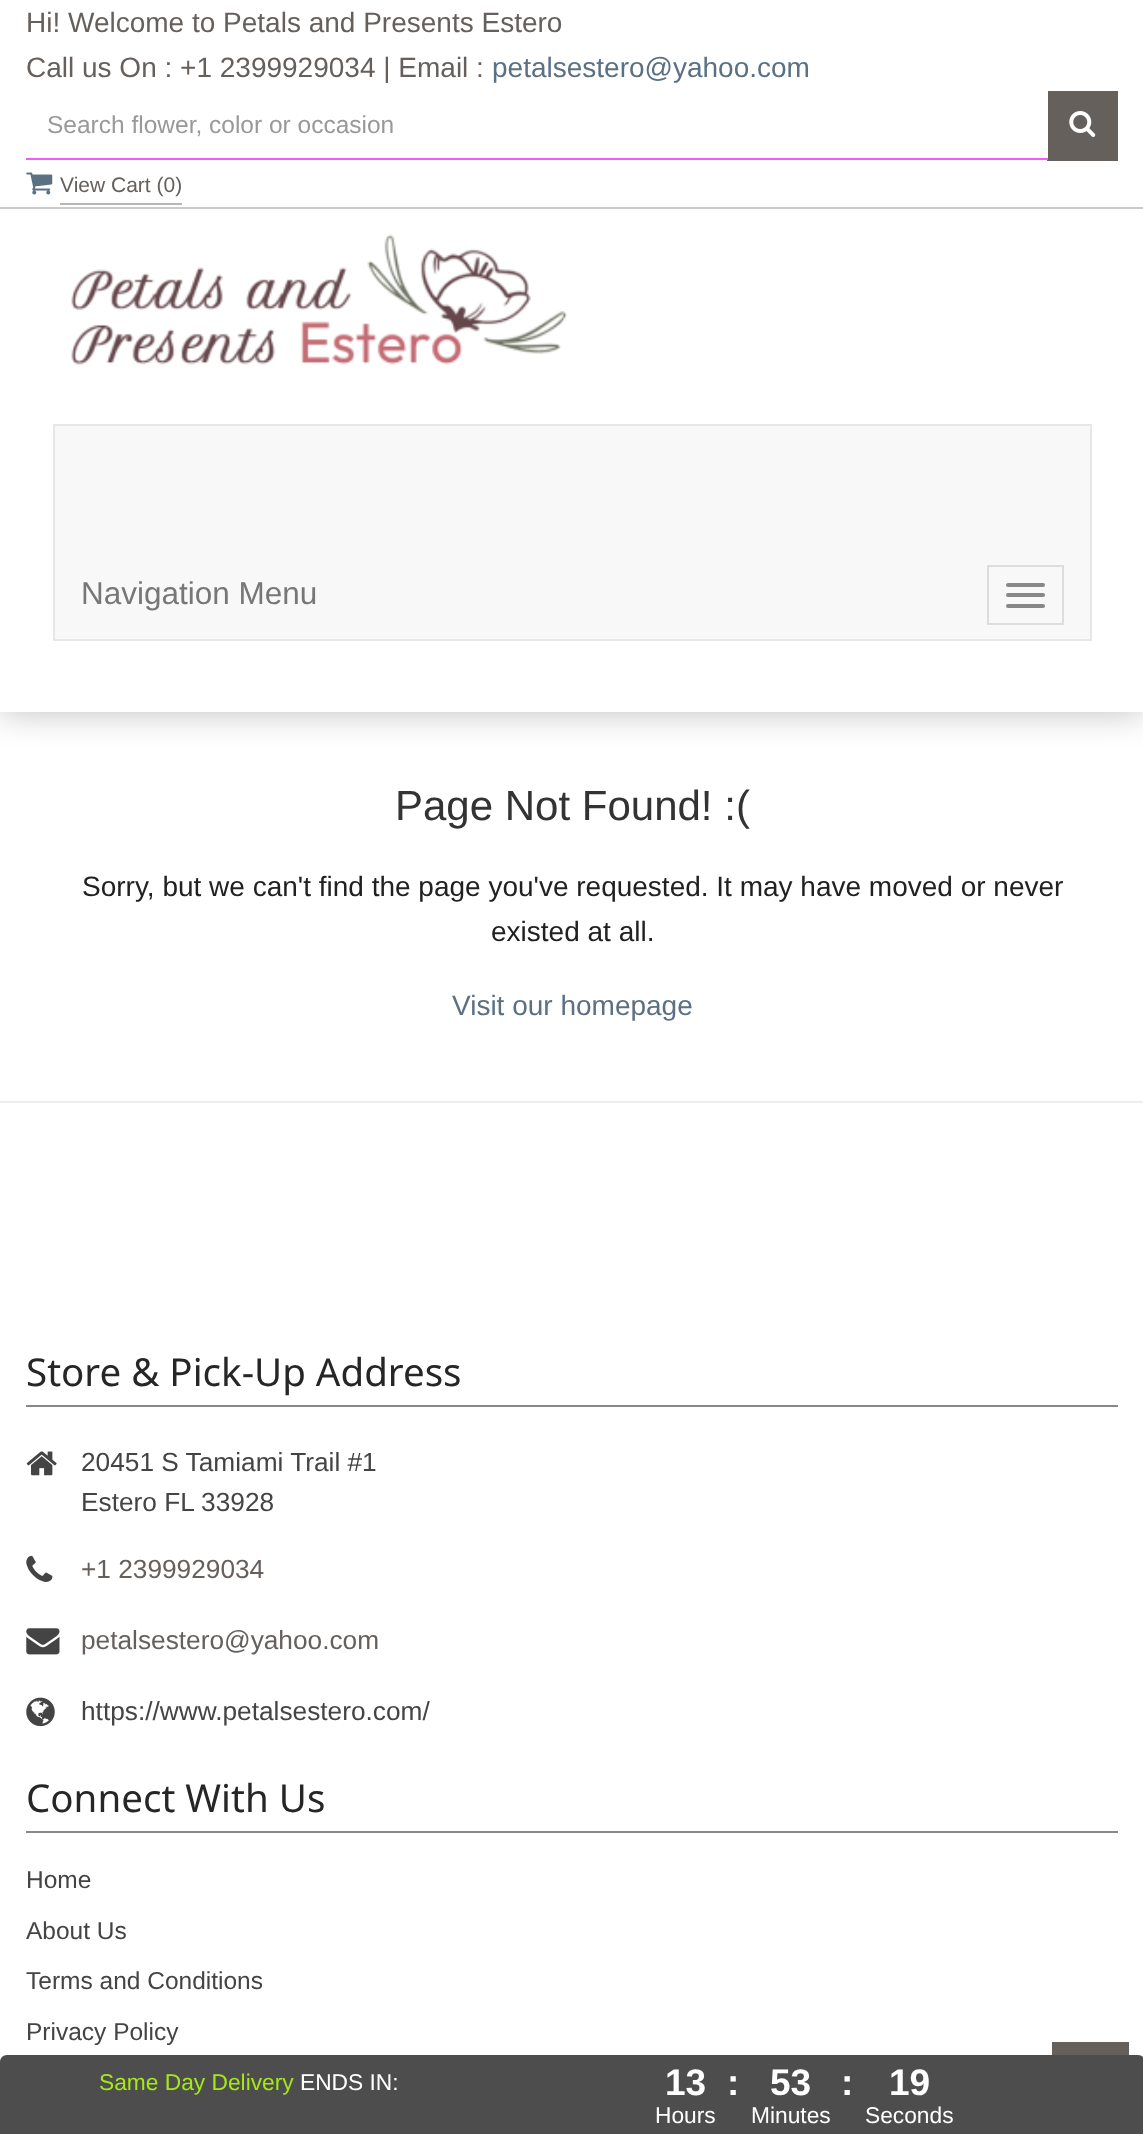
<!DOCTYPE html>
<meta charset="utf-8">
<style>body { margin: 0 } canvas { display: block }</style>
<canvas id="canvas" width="1143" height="2134"></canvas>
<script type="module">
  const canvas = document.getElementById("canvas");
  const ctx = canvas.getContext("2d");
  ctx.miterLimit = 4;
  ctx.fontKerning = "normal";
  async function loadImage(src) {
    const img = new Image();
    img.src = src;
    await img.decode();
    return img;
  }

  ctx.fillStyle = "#ffffff";
  ctx.fillRect(0, 0, 1143, 2134);
  ctx.save();
  ctx.beginPath();
  ctx.rect(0, 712, 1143, 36);
  ctx.clip();
  ctx.fillStyle = "#bfbfbf";
  ctx.filter = "blur(17.5px)";
  ctx.beginPath();
  ctx.rect(0, 0, 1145, 712);
  ctx.fill();
  ctx.filter = "none";
  ctx.restore();
  ctx.fillStyle = "#cacaca";
  ctx.fillRect(0, 207, 1143, 2);
  ctx.font = "28px Liberation Sans";
  ctx.fillStyle = "#66605d";
  ctx.fillText("Hi! Welcome to Petals and Presents Estero", 26, 32);
  ctx.fillText("Call us On : +1 2399929034 | Email :", 26, 77);
  ctx.fillStyle = "#5b7083";
  ctx.fillText("petalsestero@yahoo.com", 492, 77);
  ctx.fillStyle = "#66605d";
  ctx.fillRect(1047, 91, 71, 70);
  ctx.fillStyle = "#ffffff";
  ctx.fillRect(1047, 91, 1, 67);
  ctx.fillStyle = "#f05cf5";
  ctx.fillRect(26, 158, 1022, 2);
  ctx.font = "24.5px Liberation Sans";
  ctx.fillStyle = "#999999";
  ctx.fillText("Search flower, color or occasion", 47, 133);
  ctx.drawImage(await loadImage("img1.png"), 1069, 111, 27, 26);
  ctx.drawImage(await loadImage("img2.png"), 26, 172, 27, 23);
  ctx.font = "21px Liberation Sans";
  ctx.fillStyle = "#66605d";
  ctx.fillText("View Cart (0)", 60, 192);
  ctx.fillStyle = "#b7b7b7";
  ctx.fillRect(60, 203, 122, 2);
  ctx.drawImage(await loadImage("img3.png"), 71, 234, 496, 131);
  ctx.fillStyle = "#f8f8f8";
  ctx.beginPath();
  ctx.rect(54, 425, 1037, 215);
  ctx.fill();
  ctx.strokeStyle = "#e7e7e7";
  ctx.lineWidth = 2;
  ctx.stroke();
  ctx.font = "31.5px Liberation Sans";
  ctx.fillStyle = "#777777";
  ctx.fillText("Navigation Menu", 81, 604);
  ctx.strokeStyle = "#dddddd";
  ctx.strokeRect(988, 566, 75, 58);
  ctx.fillStyle = "#888888";
  ctx.beginPath();
  ctx.roundRect(1006, 583, 39, 4, 2);
  ctx.fill();
  ctx.beginPath();
  ctx.roundRect(1006, 593, 39, 4, 2);
  ctx.fill();
  ctx.beginPath();
  ctx.roundRect(1006, 604, 39, 4, 2);
  ctx.fill();
  ctx.font = "42px Liberation Sans";
  ctx.fillStyle = "#333333";
  ctx.fillText("Page Not Found! :(", 395, 820);
  ctx.font = "28px Liberation Sans";
  ctx.fillStyle = "#212121";
  ctx.fillText("Sorry, but we can't find the page you've requested. It may have moved or never", 82, 896);
  ctx.fillText("existed at all.", 491, 941);
  ctx.fillStyle = "#5b7083";
  ctx.fillText("Visit our homepage", 452, 1015);
  ctx.fillStyle = "#eeeeee";
  ctx.fillRect(0, 1101, 1143, 2);
  ctx.fillStyle = "#888888";
  ctx.fillRect(26, 1405, 1092, 2);
  ctx.font = "38.5px Noto Sans";
  ctx.fillStyle = "#272627";
  ctx.fillText("Store & Pick-Up Address", 26, 1386);
  ctx.drawImage(await loadImage("img4.png"), 26, 1451, 31, 25);
  ctx.font = "26.25px Liberation Sans";
  ctx.fillStyle = "#444444";
  ctx.fillText("20451 S Tamiami Trail #1", 81, 1471);
  ctx.fillText("Estero FL 33928", 81, 1511);
  ctx.drawImage(await loadImage("img5.png"), 26, 1555, 27, 27);
  ctx.fillStyle = "#66605d";
  ctx.fillText("+1 2399929034", 81, 1578);
  ctx.drawImage(await loadImage("img6.png"), 26, 1628, 34, 27);
  ctx.fillText("petalsestero@yahoo.com", 81, 1649);
  ctx.drawImage(await loadImage("img7.png"), 26, 1697, 29, 30);
  ctx.fillStyle = "#444444";
  ctx.fillText("https://www.petalsestero.com/", 81, 1720);
  ctx.fillStyle = "#888888";
  ctx.fillRect(26, 1831, 1092, 2);
  ctx.font = "38.5px Noto Sans";
  ctx.fillStyle = "#272627";
  ctx.fillText("Connect With Us", 26, 1812);
  ctx.font = "24.5px Liberation Sans";
  ctx.fillStyle = "#444444";
  ctx.fillText("Home", 26, 1888);
  ctx.fillText("About Us", 26, 1939);
  ctx.fillText("Terms and Conditions", 26, 1989);
  ctx.fillText("Privacy Policy", 26, 2040);
  ctx.fillStyle = "#66605d";
  ctx.fillRect(1052, 2042, 77, 13);
  ctx.fillStyle = "#4d4d4d";
  ctx.beginPath();
  ctx.moveTo(7, 2055);
  ctx.lineTo(1138, 2055);
  ctx.bezierCurveTo(1142, 2055, 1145, 2058, 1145, 2062);
  ctx.lineTo(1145, 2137);
  ctx.lineTo(0, 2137);
  ctx.lineTo(0, 2062);
  ctx.bezierCurveTo(0, 2058, 3, 2055, 7, 2055);
  ctx.closePath();
  ctx.fill();
  ctx.font = "22.75px Liberation Sans";
  ctx.fillStyle = "#a4e818";
  ctx.fillText("Same Day Delivery", 99, 2090);
  ctx.fillStyle = "#ffffff";
  ctx.fillText("ENDS IN:", 300, 2090);
  ctx.font = "bold 37px Liberation Sans";
  ctx.fillText("13", 665, 2095);
  ctx.font = "22.75px Liberation Sans";
  ctx.fillText("Hours", 655, 2123);
  ctx.font = "bold 37px Liberation Sans";
  ctx.fillText(":", 727, 2095);
  ctx.fillText("53", 770, 2095);
  ctx.font = "22.75px Liberation Sans";
  ctx.fillText("Minutes", 751, 2123);
  ctx.font = "bold 37px Liberation Sans";
  ctx.fillText(":", 841, 2095);
  ctx.fillText("19", 889, 2095);
  ctx.font = "22.75px Liberation Sans";
  ctx.fillText("Seconds", 865, 2123);
</script>
